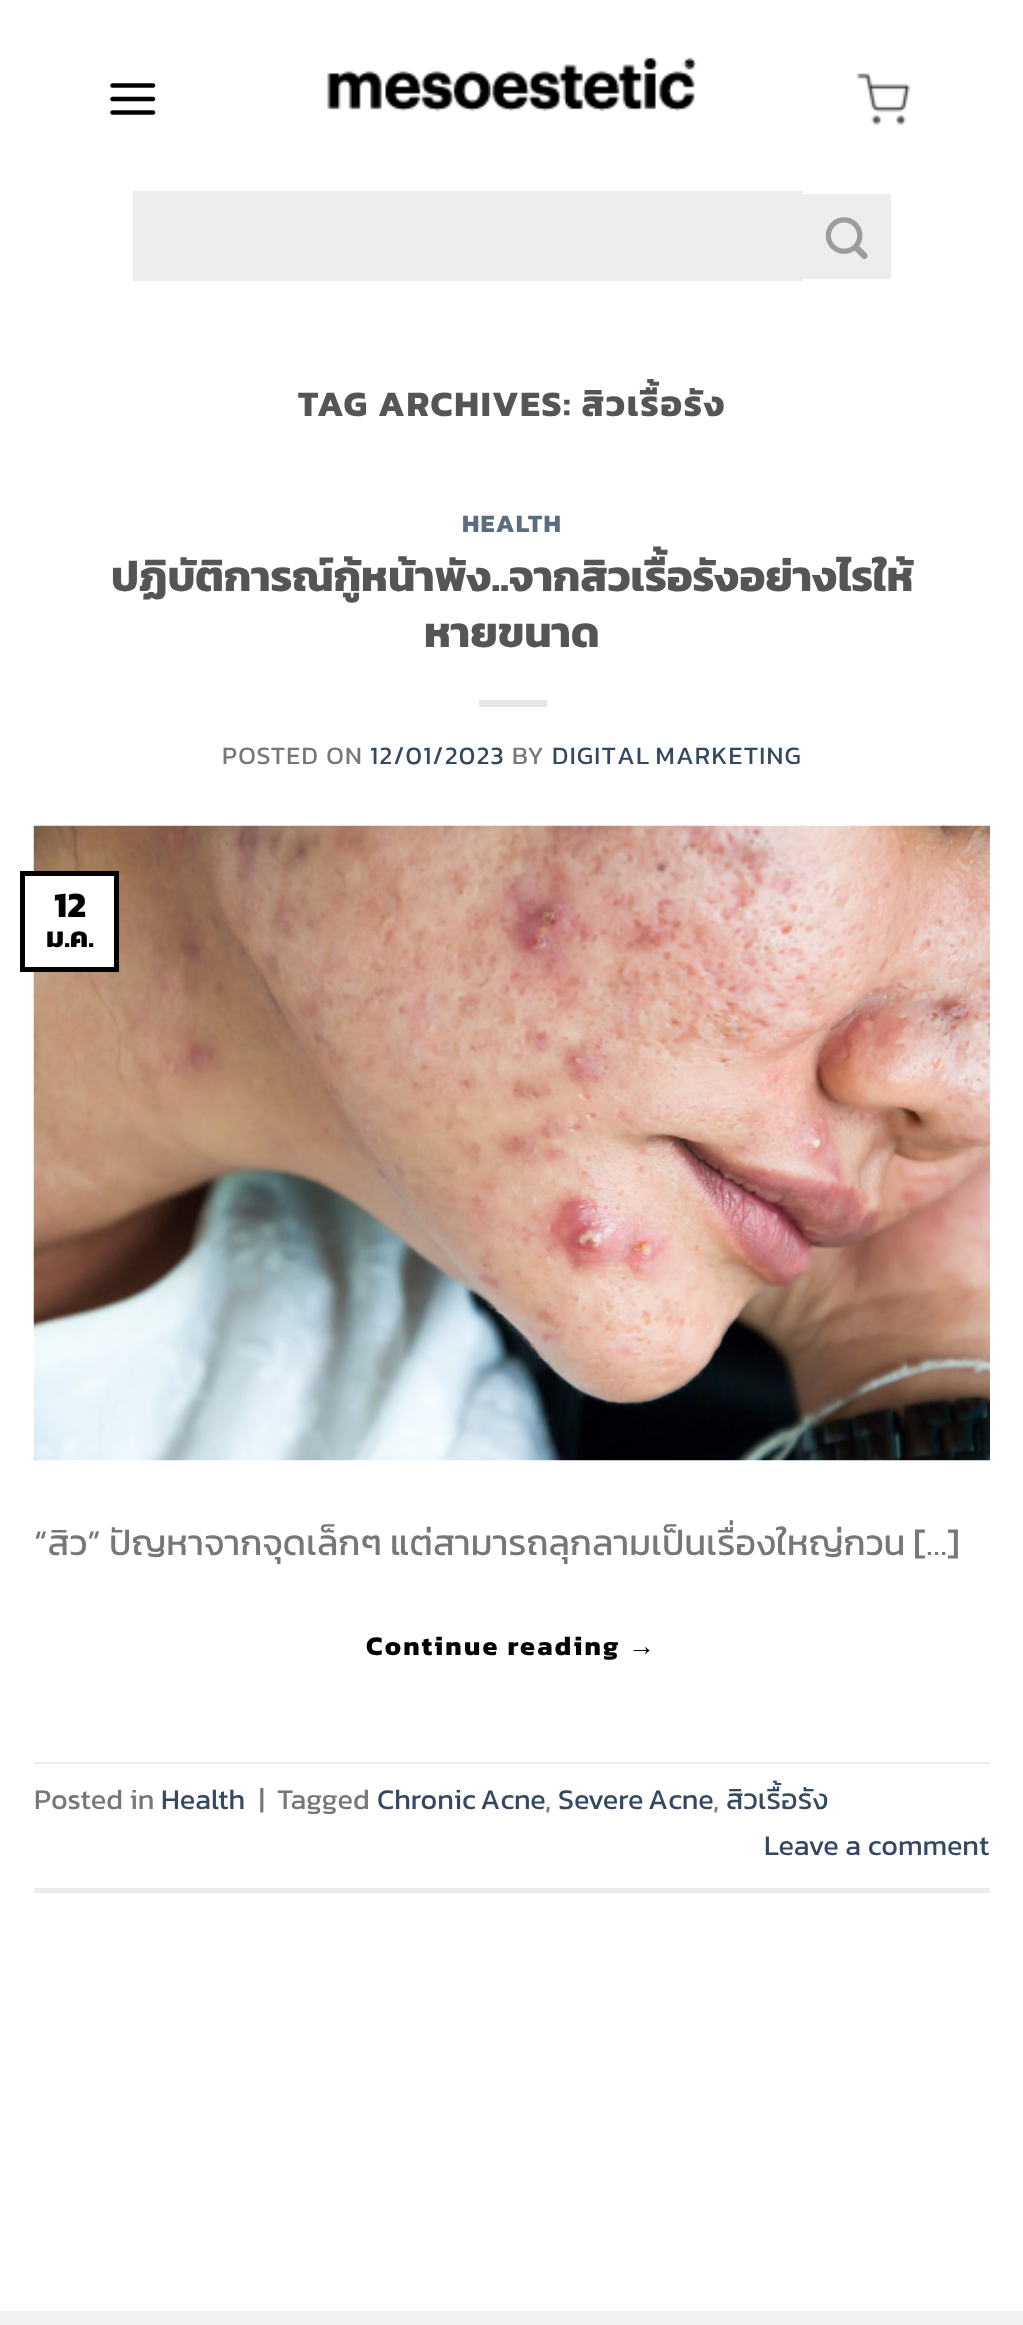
<!DOCTYPE html>
<meta charset="utf-8">
<style>body { margin: 0 } canvas { display: block }</style>
<canvas id="canvas" width="1023" height="2325"></canvas>
<script type="module">
  const canvas = document.getElementById("canvas");
  const ctx = canvas.getContext("2d");
  ctx.miterLimit = 4;
  ctx.fontKerning = "normal";
  async function loadImage(src) {
    const img = new Image();
    img.src = src;
    await img.decode();
    return img;
  }

  ctx.fillStyle = "#ffffff";
  ctx.fillRect(0, 0, 1023, 2325);
  ctx.drawImage(await loadImage("img1.png"), 110, 83, 46, 32);
  ctx.drawImage(await loadImage("img2.png"), 327, 57, 370, 55);
  ctx.drawImage(await loadImage("img3.png"), 856, 73, 55, 52);
  ctx.fillStyle = "#ededed";
  ctx.fillRect(133, 191, 670, 90);
  ctx.fillRect(803, 194, 88, 85);
  ctx.drawImage(await loadImage("img4.png"), 825, 217, 43, 43);
  ctx.letterSpacing = "1.8px";
  ctx.font = "bold 36px Kanit";
  ctx.fillStyle = "#555555";
  ctx.fillText("TAG ARCHIVES: สิวเรื้อรัง", 298, 416);
  ctx.letterSpacing = "1.25px";
  ctx.font = "bold 25.25px Kanit";
  ctx.fillStyle = "#5c6d81";
  ctx.fillText("HEALTH", 462, 532);
  ctx.letterSpacing = "0px";
  ctx.font = "bold 43.25px Kanit";
  ctx.fillStyle = "#555555";
  ctx.fillText("ปฏิบัติการณ์กู้หน้าพัง..จากสิวเรื้อรังอย่างไรให้", 111, 591);
  ctx.fillText("หายขนาด", 424, 647);
  ctx.fillStyle = "#e6e6e6";
  ctx.fillRect(479, 700, 68, 7);
  ctx.letterSpacing = "1.25px";
  ctx.font = "25.25px Kanit";
  ctx.fillStyle = "#777777";
  ctx.fillText("POSTED ON", 222, 764);
  ctx.fillStyle = "#334862";
  ctx.fillText("12/01/2023", 370, 764);
  ctx.fillStyle = "#777777";
  ctx.fillText("BY", 512, 764);
  ctx.wordSpacing = "-2px";
  ctx.fillStyle = "#334862";
  ctx.fillText("DIGITAL MARKETING", 552, 764);
  ctx.drawImage(await loadImage("img5.png"), 33, 825, 957, 636);
  ctx.fillStyle = "#ffffff";
  ctx.fillRect(33, 876, 81, 91);
  ctx.strokeStyle = "#000000";
  ctx.lineWidth = 5;
  ctx.strokeRect(22.5, 873.5, 94, 96);
  ctx.letterSpacing = "0px";
  ctx.wordSpacing = "0px";
  ctx.font = "bold 36px Kanit";
  ctx.fillStyle = "#000000";
  ctx.fillText("12", 54, 917);
  ctx.font = "bold 28.75px Kanit";
  ctx.fillText("ม.ค.", 46, 947);
  ctx.font = "36px Kanit";
  ctx.fillStyle = "#777777";
  ctx.fillText("“สิว” ปัญหาจากจุดเล็กๆ แต่สามารถลุกลามเป็นเรื่องใหญ่กวน […]", 34, 1555);
  ctx.letterSpacing = "2.25px";
  ctx.font = "bold 27px Kanit";
  ctx.fillStyle = "#000000";
  ctx.fillText("Continue reading", 366, 1655);
  ctx.font = "bold 27px Liberation Sans";
  ctx.fillText("→", 628, 1655);
  ctx.fillStyle = "#ececec";
  ctx.fillRect(34, 1762, 956, 2);
  ctx.fillRect(34, 1888, 956, 5);
  ctx.letterSpacing = "0px";
  ctx.font = "28.75px Kanit";
  ctx.fillStyle = "#777777";
  ctx.fillText("Posted in", 34, 1809);
  ctx.fillStyle = "#334862";
  ctx.fillText("Health", 161, 1809);
  ctx.fillStyle = "#777777";
  ctx.fillText("|", 259, 1809);
  ctx.fillText("Tagged", 277, 1809);
  ctx.wordSpacing = "-2px";
  ctx.fillStyle = "#334862";
  ctx.fillText("Chronic Acne", 377, 1809);
  ctx.wordSpacing = "0px";
  ctx.fillStyle = "#777777";
  ctx.fillText(",", 545, 1809);
  ctx.wordSpacing = "-2px";
  ctx.fillStyle = "#334862";
  ctx.fillText("Severe Acne", 558, 1809);
  ctx.wordSpacing = "0px";
  ctx.fillStyle = "#777777";
  ctx.fillText(",", 713, 1809);
  ctx.fillStyle = "#334862";
  ctx.fillText("สิวเรื้อรัง", 726, 1809);
  ctx.fillText("Leave a comment", 764, 1855);
  ctx.fillStyle = "#f2f2f2";
  ctx.fillRect(0, 2311, 1023, 14);
</script>
